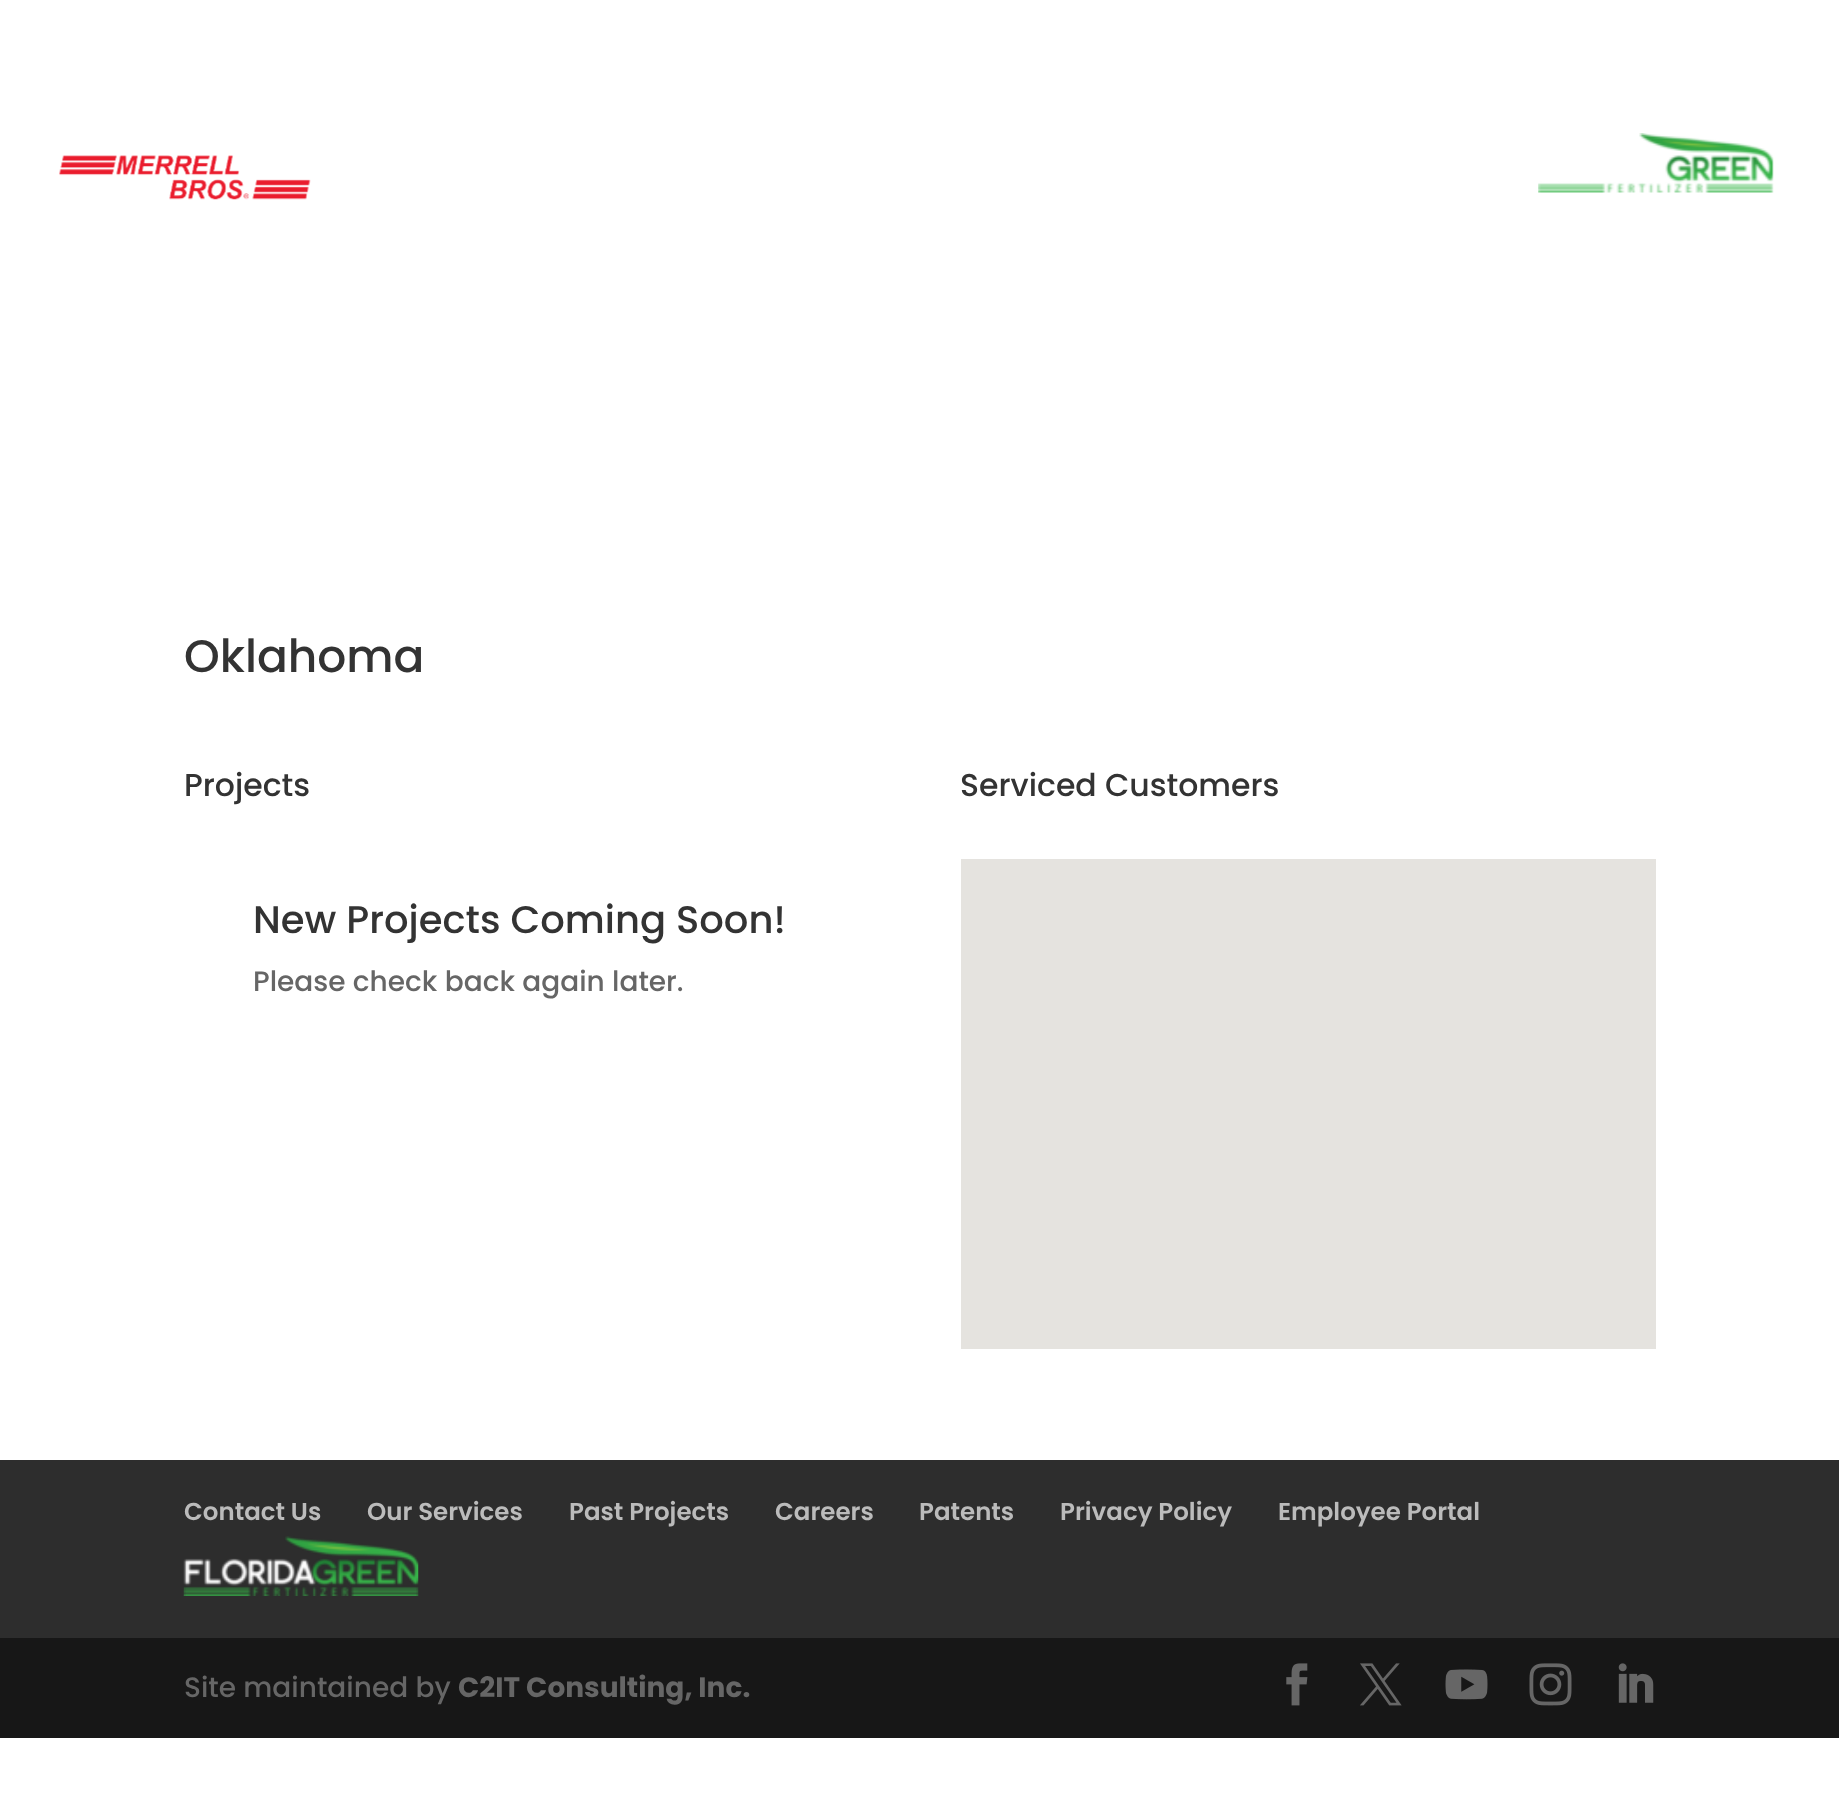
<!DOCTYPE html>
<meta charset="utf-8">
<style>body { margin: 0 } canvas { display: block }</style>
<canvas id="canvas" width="1839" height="1811"></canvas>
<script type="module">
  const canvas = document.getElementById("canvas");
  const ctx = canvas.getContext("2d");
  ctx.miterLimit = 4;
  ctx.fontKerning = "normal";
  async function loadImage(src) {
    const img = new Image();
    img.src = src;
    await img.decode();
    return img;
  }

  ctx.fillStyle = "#ffffff";
  ctx.fillRect(0, 0, 1839, 1811);
  ctx.drawImage(await loadImage("img1.png"), 59, 155, 252, 45);
  ctx.drawImage(await loadImage("img2.png"), 1538, 133, 236, 60);
  ctx.font = "500 45.5px Poppins";
  ctx.fillStyle = "#333333";
  ctx.fillText("Oklahoma", 184, 672);
  ctx.font = "500 31.5px Poppins";
  ctx.fillText("Projects", 184, 796);
  ctx.font = "500 38.5px Poppins";
  ctx.fillText("New Projects Coming Soon!", 253, 933);
  ctx.font = "500 28px Poppins";
  ctx.fillStyle = "#666666";
  ctx.fillText("Please check back again later.", 253, 991);
  ctx.font = "500 31.5px Poppins";
  ctx.fillStyle = "#333333";
  ctx.fillText("Serviced Customers", 960, 796);
  ctx.fillStyle = "#e5e3df";
  ctx.fillRect(961, 859, 695, 490);
  ctx.fillStyle = "#2d2d2d";
  ctx.fillRect(0, 1460, 1839, 178);
  ctx.font = "600 24.5px Poppins";
  ctx.fillStyle = "#bbbbbb";
  ctx.fillText("Contact Us", 184, 1520);
  ctx.fillText("Our Services", 367, 1520);
  ctx.fillText("Past Projects", 569, 1520);
  ctx.fillText("Careers", 775, 1520);
  ctx.fillText("Patents", 919, 1520);
  ctx.fillText("Privacy Policy", 1060, 1520);
  ctx.fillText("Employee Portal", 1278, 1520);
  ctx.drawImage(await loadImage("img3.png"), 183, 1536, 236, 60);
  ctx.fillStyle = "#171717";
  ctx.fillRect(0, 1638, 1839, 100);
  ctx.font = "500 28px Poppins";
  ctx.fillStyle = "#666666";
  ctx.fillText("Site maintained by", 184, 1697);
  ctx.font = "bold 28px Poppins";
  ctx.fillText("C2IT Consulting, Inc.", 458, 1697);
  ctx.drawImage(await loadImage("img4.png"), 1286, 1663, 22, 43);
  ctx.drawImage(await loadImage("img5.png"), 1360, 1663, 42, 43);
  ctx.drawImage(await loadImage("img6.png"), 1445, 1669, 43, 31);
  ctx.drawImage(await loadImage("img7.png"), 1529, 1663, 43, 43);
  ctx.drawImage(await loadImage("img8.png"), 1618, 1663, 36, 40);
</script>
